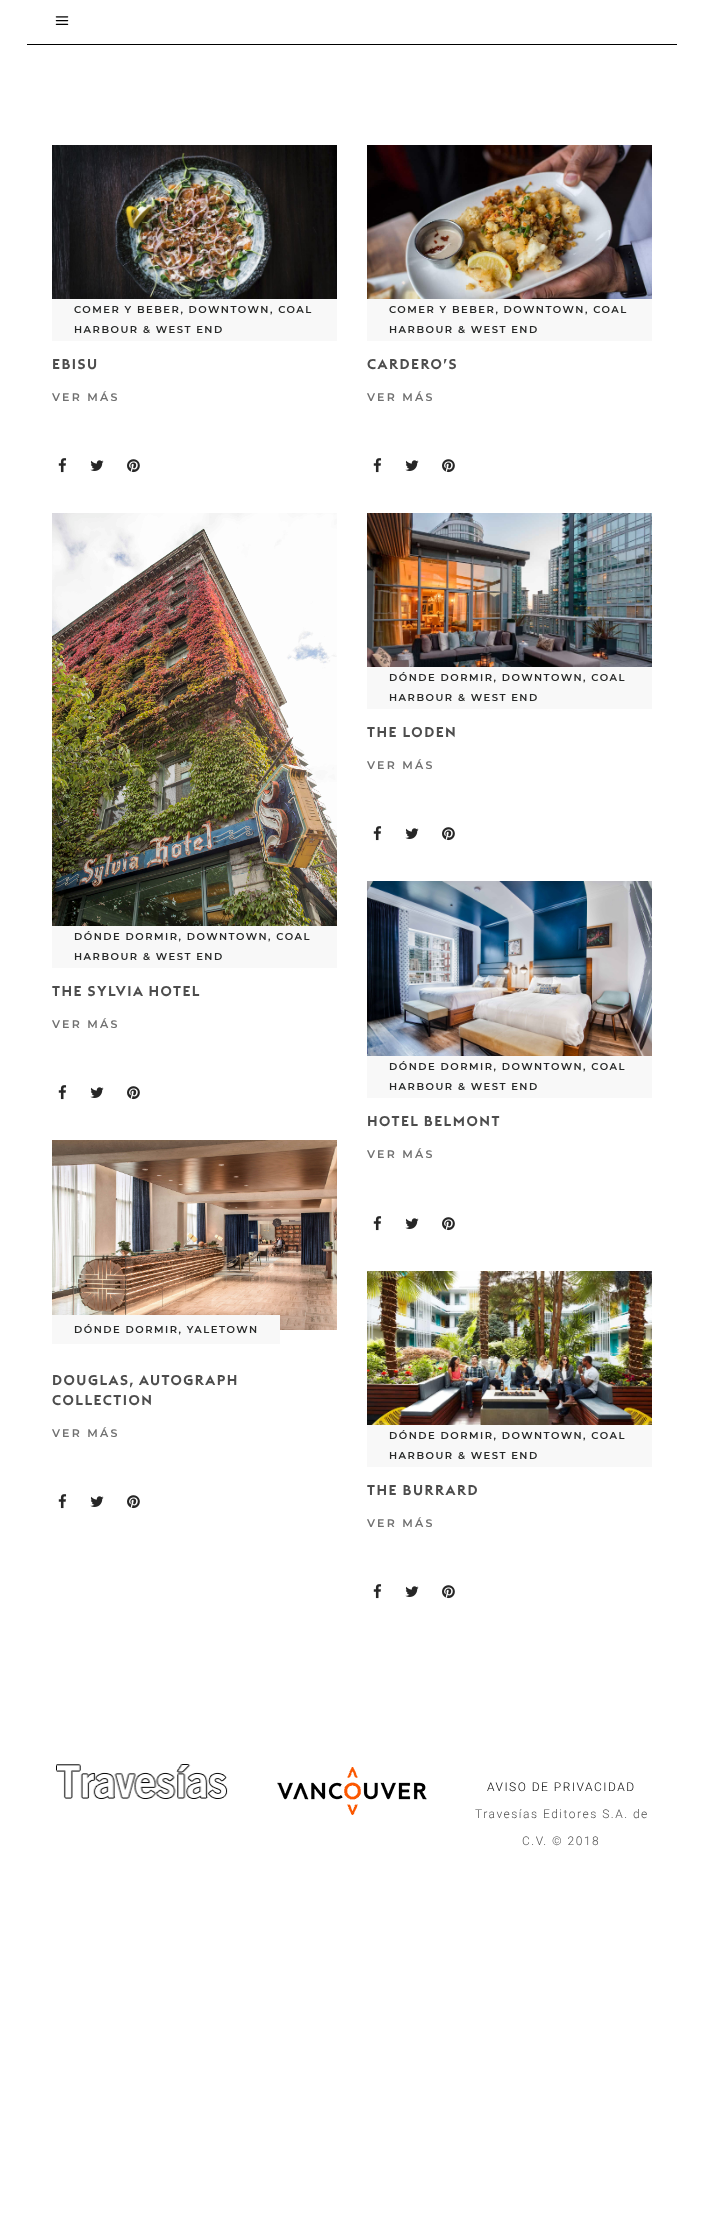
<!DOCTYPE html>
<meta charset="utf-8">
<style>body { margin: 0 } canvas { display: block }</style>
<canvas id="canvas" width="703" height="2213"></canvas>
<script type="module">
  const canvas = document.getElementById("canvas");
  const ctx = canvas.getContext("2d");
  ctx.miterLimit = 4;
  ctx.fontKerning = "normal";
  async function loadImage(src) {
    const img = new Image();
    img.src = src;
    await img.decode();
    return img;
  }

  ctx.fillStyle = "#ffffff";
  ctx.fillRect(0, 0, 703, 2213);
  ctx.fillStyle = "#000000";
  ctx.fillRect(27, 44, 650, 1);
  ctx.drawImage(await loadImage("img1.png"), 55, 16, 14, 9);
  ctx.drawImage(await loadImage("img2.png"), 52, 145, 285, 154);
  ctx.fillStyle = "#f8f8f8";
  ctx.fillRect(52, 299, 285, 42);
  ctx.letterSpacing = "1.5px";
  ctx.font = "600 10px Montserrat";
  ctx.fillStyle = "#262827";
  ctx.fillText("COMER Y BEBER, DOWNTOWN, COAL", 74, 313);
  ctx.fillText("HARBOUR & WEST END", 74, 333);
  ctx.font = "600 14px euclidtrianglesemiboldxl";
  ctx.fillStyle = "#4d4d4d";
  ctx.fillText("EBISU", 52, 369);
  ctx.letterSpacing = "2.25px";
  ctx.font = "600 11px Montserrat";
  ctx.fillStyle = "#707070";
  ctx.fillText("VER MÁS", 52, 401);
  ctx.drawImage(await loadImage("img3.png"), 58, 458, 9, 15);
  ctx.drawImage(await loadImage("img4.png"), 90, 460, 14, 11);
  ctx.drawImage(await loadImage("img5.png"), 127, 459, 13, 14);
  ctx.drawImage(await loadImage("img6.png"), 367, 145, 285, 154);
  ctx.fillStyle = "#f8f8f8";
  ctx.fillRect(367, 299, 285, 42);
  ctx.letterSpacing = "1.5px";
  ctx.font = "600 10px Montserrat";
  ctx.fillStyle = "#262827";
  ctx.fillText("COMER Y BEBER, DOWNTOWN, COAL", 389, 313);
  ctx.fillText("HARBOUR & WEST END", 389, 333);
  ctx.font = "600 14px euclidtrianglesemiboldxl";
  ctx.fillStyle = "#4d4d4d";
  ctx.fillText("CARDERO’S", 367, 369);
  ctx.letterSpacing = "2.25px";
  ctx.font = "600 11px Montserrat";
  ctx.fillStyle = "#707070";
  ctx.fillText("VER MÁS", 367, 401);
  ctx.drawImage(await loadImage("img3.png"), 373, 458, 9, 15);
  ctx.drawImage(await loadImage("img4.png"), 405, 460, 14, 11);
  ctx.drawImage(await loadImage("img5.png"), 442, 459, 13, 14);
  ctx.drawImage(await loadImage("img7.png"), 367, 513, 285, 154);
  ctx.fillStyle = "#f8f8f8";
  ctx.fillRect(367, 667, 285, 42);
  ctx.letterSpacing = "1.5px";
  ctx.font = "600 10px Montserrat";
  ctx.fillStyle = "#262827";
  ctx.fillText("DÓNDE DORMIR, DOWNTOWN, COAL", 389, 681);
  ctx.fillText("HARBOUR & WEST END", 389, 701);
  ctx.font = "600 14px euclidtrianglesemiboldxl";
  ctx.fillStyle = "#4d4d4d";
  ctx.fillText("THE LODEN", 367, 737);
  ctx.letterSpacing = "2.25px";
  ctx.font = "600 11px Montserrat";
  ctx.fillStyle = "#707070";
  ctx.fillText("VER MÁS", 367, 769);
  ctx.drawImage(await loadImage("img3.png"), 373, 826, 9, 15);
  ctx.drawImage(await loadImage("img4.png"), 405, 828, 14, 11);
  ctx.drawImage(await loadImage("img5.png"), 442, 827, 13, 14);
  ctx.drawImage(await loadImage("img8.png"), 52, 513, 285, 413);
  ctx.fillStyle = "#f8f8f8";
  ctx.fillRect(52, 926, 285, 42);
  ctx.letterSpacing = "1.5px";
  ctx.font = "600 10px Montserrat";
  ctx.fillStyle = "#262827";
  ctx.fillText("DÓNDE DORMIR, DOWNTOWN, COAL", 74, 940);
  ctx.fillText("HARBOUR & WEST END", 74, 960);
  ctx.font = "600 14px euclidtrianglesemiboldxl";
  ctx.fillStyle = "#4d4d4d";
  ctx.fillText("THE SYLVIA HOTEL", 52, 996);
  ctx.letterSpacing = "2.25px";
  ctx.font = "600 11px Montserrat";
  ctx.fillStyle = "#707070";
  ctx.fillText("VER MÁS", 52, 1028);
  ctx.drawImage(await loadImage("img3.png"), 58, 1085, 9, 15);
  ctx.drawImage(await loadImage("img4.png"), 90, 1087, 14, 11);
  ctx.drawImage(await loadImage("img5.png"), 127, 1086, 13, 14);
  ctx.drawImage(await loadImage("img9.png"), 367, 881, 285, 175);
  ctx.fillStyle = "#f8f8f8";
  ctx.fillRect(367, 1056, 285, 42);
  ctx.letterSpacing = "1.5px";
  ctx.font = "600 10px Montserrat";
  ctx.fillStyle = "#262827";
  ctx.fillText("DÓNDE DORMIR, DOWNTOWN, COAL", 389, 1070);
  ctx.fillText("HARBOUR & WEST END", 389, 1090);
  ctx.font = "600 14px euclidtrianglesemiboldxl";
  ctx.fillStyle = "#4d4d4d";
  ctx.fillText("HOTEL BELMONT", 367, 1126);
  ctx.letterSpacing = "2.25px";
  ctx.font = "600 11px Montserrat";
  ctx.fillStyle = "#707070";
  ctx.fillText("VER MÁS", 367, 1158);
  ctx.drawImage(await loadImage("img3.png"), 373, 1216, 9, 15);
  ctx.drawImage(await loadImage("img4.png"), 405, 1218, 14, 11);
  ctx.drawImage(await loadImage("img5.png"), 442, 1217, 13, 14);
  ctx.drawImage(await loadImage("img10.png"), 52, 1140, 285, 190);
  ctx.fillStyle = "#f8f8f8";
  ctx.fillRect(52, 1315, 228, 29);
  ctx.letterSpacing = "1.5px";
  ctx.font = "600 10px Montserrat";
  ctx.fillStyle = "#262827";
  ctx.fillText("DÓNDE DORMIR, YALETOWN", 74, 1333);
  ctx.font = "600 14px euclidtrianglesemiboldxl";
  ctx.fillStyle = "#4d4d4d";
  ctx.fillText("DOUGLAS, AUTOGRAPH", 52, 1385);
  ctx.fillText("COLLECTION", 52, 1405);
  ctx.letterSpacing = "2.25px";
  ctx.font = "600 11px Montserrat";
  ctx.fillStyle = "#707070";
  ctx.fillText("VER MÁS", 52, 1437);
  ctx.drawImage(await loadImage("img3.png"), 58, 1494, 9, 15);
  ctx.drawImage(await loadImage("img4.png"), 90, 1496, 14, 11);
  ctx.drawImage(await loadImage("img5.png"), 127, 1495, 13, 14);
  ctx.drawImage(await loadImage("img11.png"), 367, 1271, 285, 154);
  ctx.fillStyle = "#f8f8f8";
  ctx.fillRect(367, 1425, 285, 42);
  ctx.letterSpacing = "1.5px";
  ctx.font = "600 10px Montserrat";
  ctx.fillStyle = "#262827";
  ctx.fillText("DÓNDE DORMIR, DOWNTOWN, COAL", 389, 1439);
  ctx.fillText("HARBOUR & WEST END", 389, 1459);
  ctx.font = "600 14px euclidtrianglesemiboldxl";
  ctx.fillStyle = "#4d4d4d";
  ctx.fillText("THE BURRARD", 367, 1495);
  ctx.letterSpacing = "2.25px";
  ctx.font = "600 11px Montserrat";
  ctx.fillStyle = "#707070";
  ctx.fillText("VER MÁS", 367, 1527);
  ctx.drawImage(await loadImage("img3.png"), 373, 1584, 9, 15);
  ctx.drawImage(await loadImage("img4.png"), 405, 1586, 14, 11);
  ctx.drawImage(await loadImage("img5.png"), 442, 1585, 13, 14);
  ctx.drawImage(await loadImage("img12.png"), 56, 1764, 172, 35);
  ctx.drawImage(await loadImage("img13.png"), 277, 1767, 150, 48);
  ctx.letterSpacing = "1.5px";
  ctx.font = "300 12px Roboto";
  ctx.fillStyle = "#000000";
  ctx.fillText("AVISO DE PRIVACIDAD", 487, 1791);
  ctx.fillStyle = "#4d4d4d";
  ctx.fillText("Travesías Editores S.A. de", 475, 1818);
  ctx.fillText("C.V. © 2018", 522, 1845);
</script>
